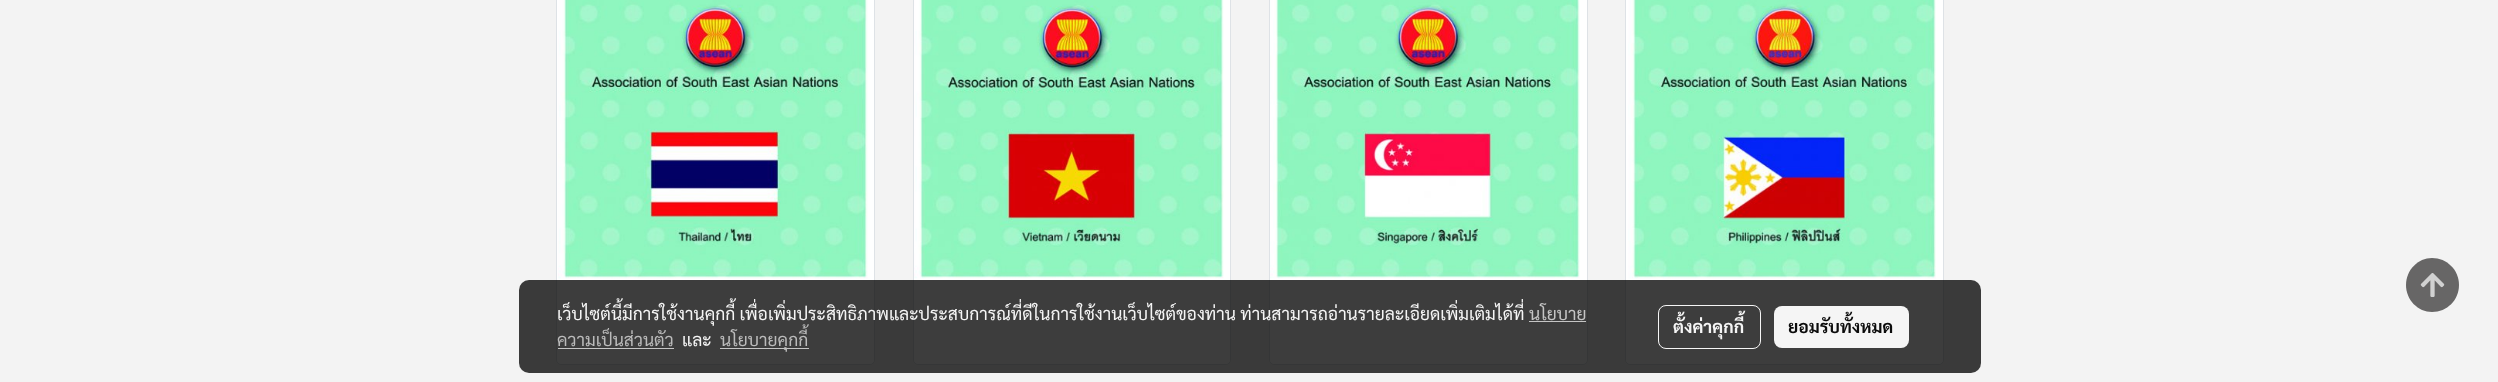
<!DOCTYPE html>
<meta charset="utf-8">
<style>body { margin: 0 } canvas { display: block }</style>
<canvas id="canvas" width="2498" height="382"></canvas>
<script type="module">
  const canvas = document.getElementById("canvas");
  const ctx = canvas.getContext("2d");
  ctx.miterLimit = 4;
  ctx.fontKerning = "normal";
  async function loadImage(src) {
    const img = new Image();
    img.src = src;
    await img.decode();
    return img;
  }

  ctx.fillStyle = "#f3f3f3";
  ctx.fillRect(0, 0, 2498, 382);
  ctx.fillStyle = "#ffffff";
  ctx.beginPath();
  ctx.roundRect(556.5, -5.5, 318, 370, 4.5);
  ctx.fill();
  ctx.strokeStyle = "#dee2e6";
  ctx.stroke();
  ctx.beginPath();
  ctx.roundRect(558, -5, 316, 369, 5);
  ctx.fill();
  ctx.drawImage(await loadImage("img1.png"), 558, 0, 310, 279);
  ctx.beginPath();
  ctx.roundRect(913.5, -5.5, 317, 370, 4.5);
  ctx.fill();
  ctx.stroke();
  ctx.beginPath();
  ctx.roundRect(914, -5, 316, 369, 5);
  ctx.fill();
  ctx.drawImage(await loadImage("img2.png"), 914, 0, 310, 279);
  ctx.beginPath();
  ctx.roundRect(1269.5, -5.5, 318, 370, 4.5);
  ctx.fill();
  ctx.stroke();
  ctx.beginPath();
  ctx.roundRect(1270, -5, 316, 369, 5);
  ctx.fill();
  ctx.drawImage(await loadImage("img3.png"), 1270, 0, 310, 279);
  ctx.beginPath();
  ctx.roundRect(1625.5, -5.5, 318, 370, 4.5);
  ctx.fill();
  ctx.stroke();
  ctx.beginPath();
  ctx.roundRect(1626, -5, 317, 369, 5);
  ctx.fill();
  ctx.drawImage(await loadImage("img4.png"), 1628, 0, 308, 279);
  ctx.fillStyle = "#676666";
  ctx.beginPath();
  ctx.moveTo(2432, 258);
  ctx.bezierCurveTo(2418, 258, 2406, 270, 2406, 285);
  ctx.bezierCurveTo(2406, 300, 2418, 312, 2432, 312);
  ctx.bezierCurveTo(2447, 312, 2459, 300, 2459, 285);
  ctx.bezierCurveTo(2459, 270, 2447, 258, 2432, 258);
  ctx.closePath();
  ctx.fill();
  ctx.drawImage(await loadImage("img5.png"), 2420, 273, 25, 24);
  ctx.fillStyle = "rgba(0, 0, 0, 0.76)";
  ctx.beginPath();
  ctx.roundRect(519, 280, 1462, 93, 10);
  ctx.fill();
  ctx.font = "17.5px Sarabun";
  ctx.fillStyle = "#f5f5f5";
  ctx.fillText("เว็บไซต์นี้มีการใช้งานคุกกี้ เพื่อเพิ่มประสิทธิภาพและประสบการณ์ที่ดีในการใช้งานเว็บไซต์ของท่าน ท่านสามารถอ่านรายละเอียดเพิ่มเติมได้ที่", 557, 320);
  ctx.fillStyle = "#c5c5c5";
  ctx.fillText("นโยบาย", 1529, 320);
  ctx.fillRect(1529, 321, 57, 1);
  ctx.fillStyle = "#bbbbbb";
  ctx.fillText("ความเป็นส่วนตัว", 557, 346);
  ctx.fillStyle = "#c5c5c5";
  ctx.fillRect(558, 348, 116, 1);
  ctx.fillStyle = "#f5f5f5";
  ctx.fillText("และ", 682, 346);
  ctx.fillStyle = "#c5c5c5";
  ctx.fillRect(720, 348, 89, 1);
  ctx.fillStyle = "#bbbbbb";
  ctx.fillText("นโยบายคุกกี้", 720, 346);
  ctx.beginPath();
  ctx.roundRect(1658.5, 305.5, 102, 43, 7.5);
  ctx.strokeStyle = "rgba(255, 255, 255, 0.95)";
  ctx.stroke();
  ctx.font = "bold 17.5px Sarabun";
  ctx.fillStyle = "#f5f5f5";
  ctx.fillText("ตั้งค่าคุกกี้", 1673, 333);
  ctx.fillStyle = "rgba(255, 255, 255, 0.95)";
  ctx.beginPath();
  ctx.roundRect(1774, 306, 135, 42, 8);
  ctx.fill();
  ctx.fillStyle = "#0c0c0c";
  ctx.fillText("ยอมรับทั้งหมด", 1788, 333);
</script>
